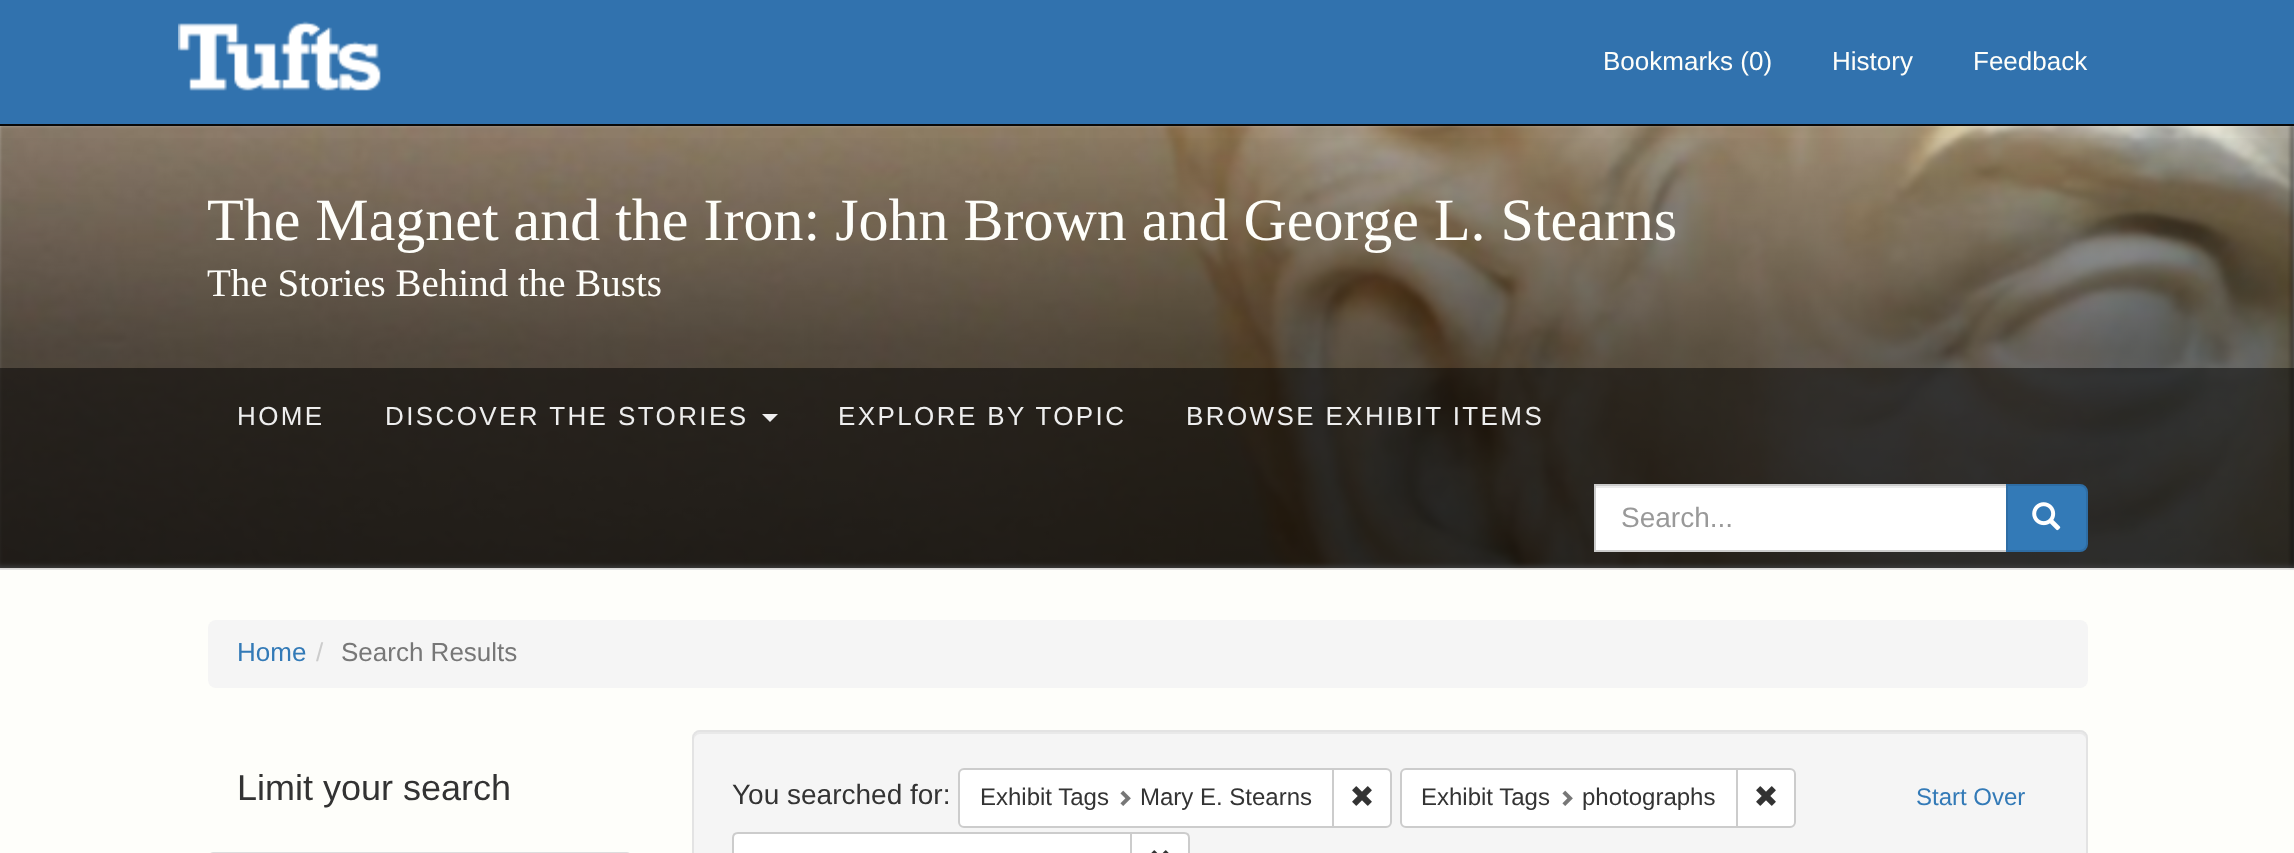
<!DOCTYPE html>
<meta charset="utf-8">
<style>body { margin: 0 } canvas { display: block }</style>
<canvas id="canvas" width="2294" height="853"></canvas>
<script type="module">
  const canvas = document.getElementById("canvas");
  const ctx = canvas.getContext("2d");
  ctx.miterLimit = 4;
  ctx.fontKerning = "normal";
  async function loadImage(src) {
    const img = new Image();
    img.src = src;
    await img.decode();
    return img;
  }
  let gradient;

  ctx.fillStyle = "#fefefa";
  ctx.fillRect(0, 0, 2294, 853);
  ctx.fillStyle = "#f5f5f5";
  ctx.fillRect(0, 126, 2294, 442);
  ctx.fillStyle = "#e7e7e7";
  ctx.fillRect(0, 568, 2294, 2);
  ctx.drawImage(await loadImage("img2.png"), 0, 126, 2294, 444);
  ctx.fillStyle = "#000000";
  ctx.filter = "blur(2px)";
  ctx.beginPath();
  ctx.rect(2292, 124, 2, 442);
  ctx.fill();
  ctx.filter = "none";
  ctx.fillStyle = "#3172ae";
  ctx.fillRect(0, 0, 2294, 124);
  ctx.fillStyle = "#090909";
  ctx.fillRect(0, 124, 2294, 2);
  ctx.drawImage(await loadImage("img1.png"), 178, 21, 203, 70);
  ctx.font = "26px Liberation Sans";
  ctx.fillStyle = "#fefefa";
  ctx.fillText("Bookmarks (0)", 1603, 70);
  ctx.fillText("History", 1832, 70);
  ctx.fillText("Feedback", 1973, 70);
  gradient = ctx.createLinearGradient(1147, 126, 1147, 568);
  gradient.addColorStop(0, "rgba(0, 0, 0, 0)");
  gradient.addColorStop(0.5, "rgba(0, 0, 0, 0.4)");
  gradient.addColorStop(1, "rgba(0, 0, 0, 0.5)");
  ctx.fillStyle = gradient;
  ctx.fillRect(0, 138, 2294, 430);
  ctx.font = "60px Liberation Serif";
  ctx.fillStyle = "#fefefa";
  ctx.fillText("The Magnet and the Iron: John Brown and George L. Stearns", 207, 240);
  ctx.font = "39px Liberation Serif";
  ctx.fillText("The Stories Behind the Busts", 207, 296);
  ctx.fillStyle = "rgba(0, 0, 0, 0.5)";
  ctx.fillRect(0, 368, 2294, 200);
  ctx.letterSpacing = "2.4px";
  ctx.font = "26px Liberation Sans";
  ctx.fillStyle = "#eeeeee";
  ctx.fillText("HOME", 237, 425);
  ctx.fillText("DISCOVER THE STORIES", 385, 425);
  ctx.beginPath();
  ctx.moveTo(762, 414);
  ctx.lineTo(778, 414);
  ctx.lineTo(770, 422);
  ctx.closePath();
  ctx.fill();
  ctx.fillText("EXPLORE BY TOPIC", 838, 425);
  ctx.fillText("BROWSE EXHIBIT ITEMS", 1186, 425);
  ctx.fillStyle = "#ffffff";
  ctx.fillRect(1596, 488, 410, 62);
  ctx.fillStyle = "#ececec";
  ctx.fillRect(1596, 486, 410, 2);
  ctx.strokeStyle = "#cccccc";
  ctx.lineWidth = 2;
  ctx.strokeRect(1595, 485, 412, 66);
  ctx.letterSpacing = "0px";
  ctx.font = "28px Liberation Sans";
  ctx.fillStyle = "#999999";
  ctx.fillText("Search...", 1621, 527);
  ctx.fillStyle = "#337ab7";
  ctx.beginPath();
  ctx.roundRect(2007, 485, 80, 66, [0, 7, 7, 0]);
  ctx.fill();
  ctx.strokeStyle = "#2e6da4";
  ctx.stroke();
  ctx.drawImage(await loadImage("img3.png"), 2032, 502, 29, 29);
  ctx.fillStyle = "#f5f5f5";
  ctx.beginPath();
  ctx.roundRect(208, 620, 1880, 68, 8);
  ctx.fill();
  ctx.font = "26px Liberation Sans";
  ctx.fillStyle = "#337ab7";
  ctx.fillText("Home", 237, 661);
  ctx.fillStyle = "#cccccc";
  ctx.fillText("/", 316, 661);
  ctx.fillStyle = "#777777";
  ctx.fillText("Search Results", 341, 661);
  ctx.font = "36px Liberation Sans";
  ctx.fillStyle = "#333333";
  ctx.fillText("Limit your search", 237, 800);
  ctx.beginPath();
  ctx.roundRect(209, 853, 422, 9, 7);
  ctx.strokeStyle = "#dddddd";
  ctx.stroke();
  ctx.fillStyle = "#f5f5f5";
  ctx.beginPath();
  ctx.roundRect(692, 730, 1396, 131, 8);
  ctx.fill();
  ctx.fillStyle = "#e9e9e9";
  ctx.beginPath();
  ctx.moveTo(700, 734);
  ctx.lineTo(2080, 734);
  ctx.bezierCurveTo(2083, 734, 2086, 737, 2086, 740);
  ctx.bezierCurveTo(2086, 736, 2085, 732, 2080, 732);
  ctx.lineTo(700, 732);
  ctx.bezierCurveTo(695, 732, 694, 736, 694, 740);
  ctx.bezierCurveTo(694, 737, 697, 734, 700, 734);
  ctx.closePath();
  ctx.fill();
  ctx.beginPath();
  ctx.roundRect(693, 731, 1394, 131, 7);
  ctx.strokeStyle = "#e3e3e3";
  ctx.stroke();
  ctx.font = "28px Liberation Sans";
  ctx.fillStyle = "#333333";
  ctx.fillText("You searched for:", 732, 804);
  ctx.fillStyle = "#ffffff";
  ctx.beginPath();
  ctx.roundRect(959, 769, 374, 58, [5, 0, 0, 5]);
  ctx.fill();
  ctx.strokeStyle = "#cccccc";
  ctx.stroke();
  ctx.font = "24px Liberation Sans";
  ctx.fillStyle = "#333333";
  ctx.fillText("Exhibit Tags", 980, 805);
  ctx.drawImage(await loadImage("img4.png"), 1120, 790, 11, 16);
  ctx.fillText("Mary E. Stearns", 1140, 805);
  ctx.fillStyle = "#ffffff";
  ctx.beginPath();
  ctx.roundRect(1333, 769, 58, 58, [0, 5, 5, 0]);
  ctx.fill();
  ctx.stroke();
  ctx.drawImage(await loadImage("img5.png"), 1352, 786, 20, 20);
  ctx.beginPath();
  ctx.roundRect(1401, 769, 336, 58, [5, 0, 0, 5]);
  ctx.fill();
  ctx.stroke();
  ctx.fillStyle = "#333333";
  ctx.fillText("Exhibit Tags", 1421, 805);
  ctx.drawImage(await loadImage("img4.png"), 1562, 790, 11, 16);
  ctx.fillText("photographs", 1582, 805);
  ctx.fillStyle = "#ffffff";
  ctx.beginPath();
  ctx.roundRect(1737, 769, 58, 58, [0, 5, 5, 0]);
  ctx.fill();
  ctx.stroke();
  ctx.drawImage(await loadImage("img5.png"), 1756, 786, 20, 20);
  ctx.fillStyle = "#337ab7";
  ctx.fillText("Start Over", 1916, 805);
  ctx.fillStyle = "#ffffff";
  ctx.beginPath();
  ctx.moveTo(738, 833);
  ctx.lineTo(1131, 833);
  ctx.lineTo(1131, 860);
  ctx.lineTo(738, 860);
  ctx.bezierCurveTo(735, 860, 733, 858, 733, 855);
  ctx.lineTo(733, 838);
  ctx.bezierCurveTo(733, 835, 735, 833, 738, 833);
  ctx.closePath();
  ctx.fill();
  ctx.stroke();
  ctx.beginPath();
  ctx.moveTo(1131, 833);
  ctx.lineTo(1184, 833);
  ctx.bezierCurveTo(1187, 833, 1189, 835, 1189, 838);
  ctx.lineTo(1189, 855);
  ctx.bezierCurveTo(1189, 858, 1187, 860, 1184, 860);
  ctx.lineTo(1131, 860);
  ctx.closePath();
  ctx.fill();
  ctx.stroke();
  ctx.drawImage(await loadImage("img6.png"), 1151, 850, 18, 3);
</script>
